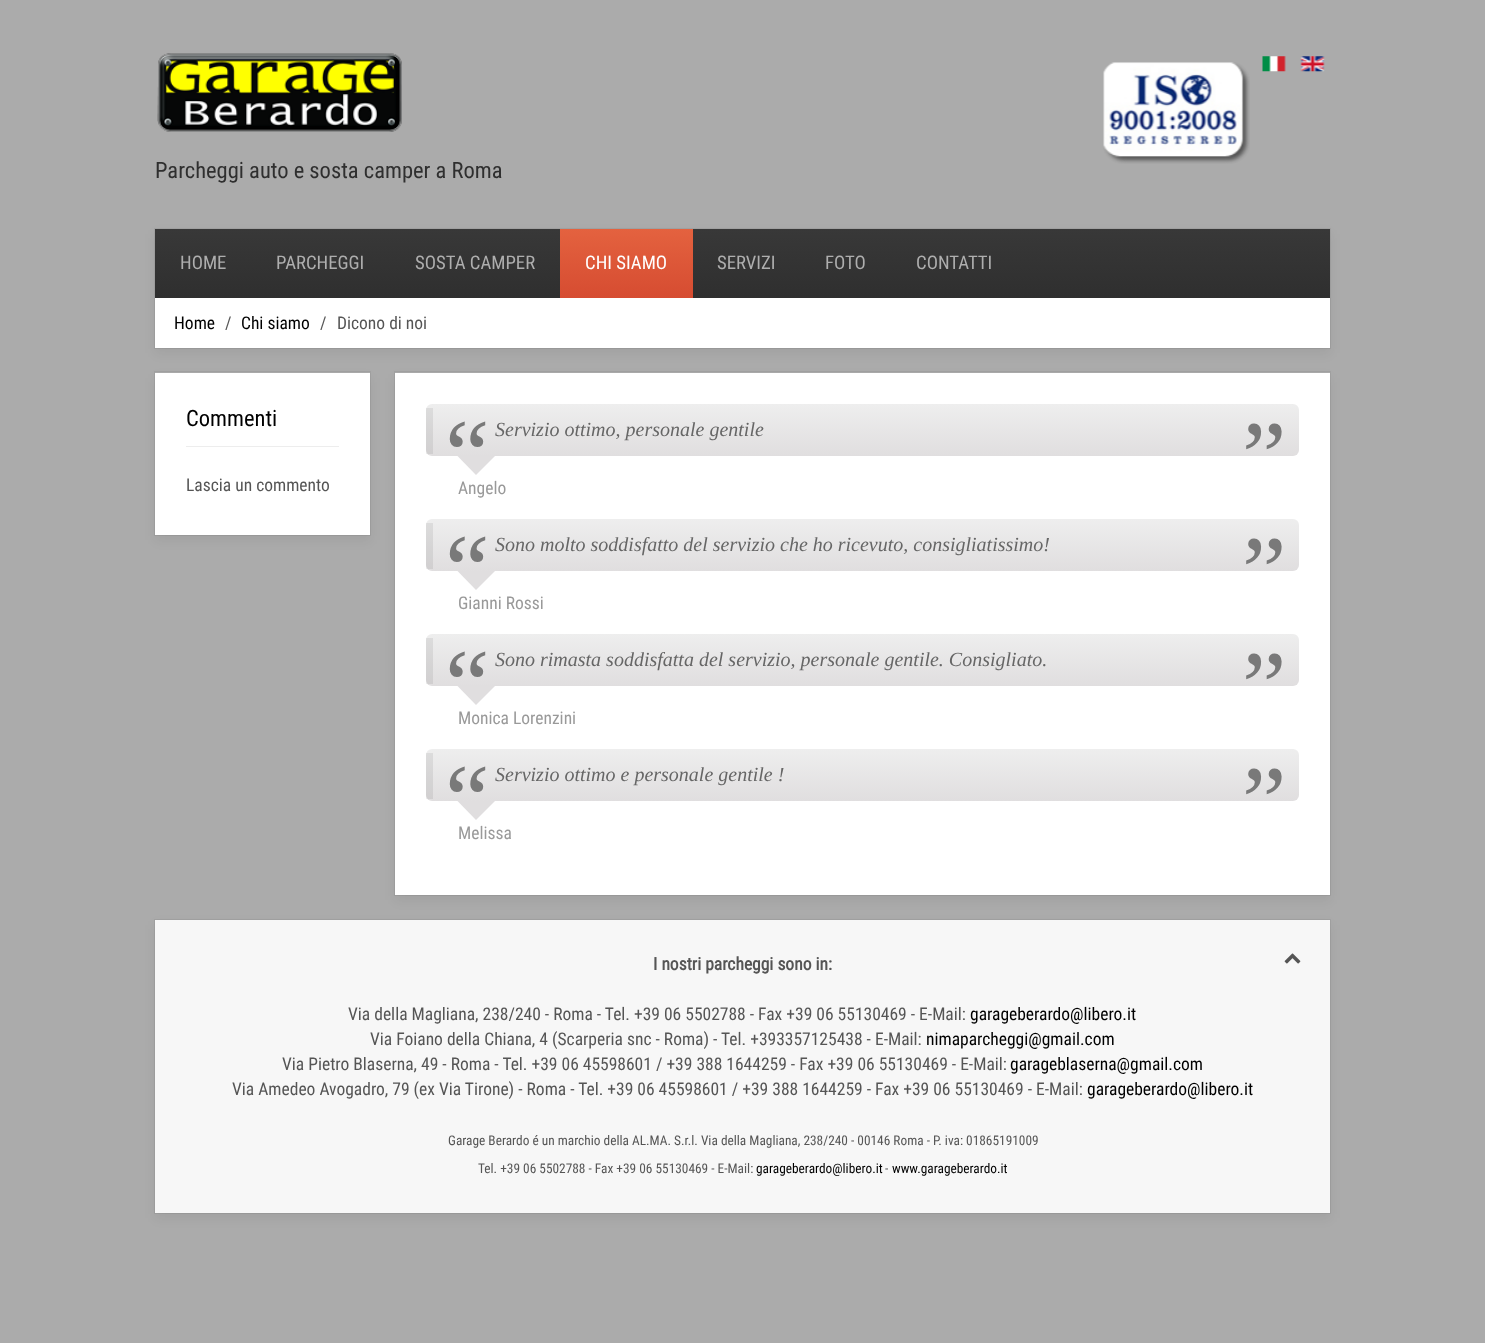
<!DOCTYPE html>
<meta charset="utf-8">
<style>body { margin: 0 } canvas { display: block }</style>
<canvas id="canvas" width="1485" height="1343"></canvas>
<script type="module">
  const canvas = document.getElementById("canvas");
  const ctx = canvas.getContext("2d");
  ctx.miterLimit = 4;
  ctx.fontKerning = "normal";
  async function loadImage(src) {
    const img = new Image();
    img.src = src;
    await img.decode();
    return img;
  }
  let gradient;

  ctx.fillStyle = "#ababab";
  ctx.fillRect(0, 0, 1485, 1343);
  ctx.drawImage(await loadImage("img1.png"), 1103, 62, 147, 102);
  ctx.drawImage(await loadImage("img2.png"), 1262, 56, 24, 16);
  ctx.drawImage(await loadImage("img3.png"), 1300, 56, 25, 16);
  ctx.drawImage(await loadImage("img4.png"), 157, 53, 245, 79);
  ctx.font = "22.5px Roboto Condensed";
  ctx.fillStyle = "#2f2f2f";
  ctx.fillText("Parcheggi auto e sosta camper a Roma", 155, 178);
  ctx.fillStyle = "rgba(0, 0, 0, 0.06)";
  ctx.filter = "blur(6px)";
  ctx.beginPath();
  ctx.rect(155, 234, 1175, 119);
  ctx.fill();
  ctx.filter = "none";
  ctx.strokeStyle = "rgba(0, 0, 0, 0.06)";
  ctx.strokeRect(154.5, 228.5, 1176, 120);
  ctx.fillStyle = "#ffffff";
  ctx.fillRect(155, 298, 1175, 50);
  gradient = ctx.createLinearGradient(743, 229, 743, 298);
  gradient.addColorStop(0, "#383838");
  gradient.addColorStop(1, "#2f2f2f");
  ctx.fillStyle = gradient;
  ctx.fillRect(155, 229, 1175, 69);
  ctx.font = "18.75px Roboto Condensed";
  ctx.fillStyle = "#aeaeae";
  ctx.fillText("HOME", 180, 269);
  ctx.fillText("PARCHEGGI", 276, 269);
  ctx.fillText("SOSTA CAMPER", 415, 269);
  gradient = ctx.createLinearGradient(626, 229, 626, 298);
  gradient.addColorStop(0, "#e4623f");
  gradient.addColorStop(1, "#d64c31");
  ctx.fillStyle = gradient;
  ctx.fillRect(560, 229, 133, 69);
  ctx.fillStyle = "#ffffff";
  ctx.fillText("CHI SIAMO", 585, 269);
  ctx.fillStyle = "#aeaeae";
  ctx.fillText("SERVIZI", 717, 269);
  ctx.fillText("FOTO", 825, 269);
  ctx.fillText("CONTATTI", 916, 269);
  ctx.font = "17.5px Roboto Condensed";
  ctx.fillStyle = "#000000";
  ctx.fillText("Home", 174, 329);
  ctx.fillStyle = "#555555";
  ctx.fillText("/", 225, 329);
  ctx.fillStyle = "#000000";
  ctx.fillText("Chi siamo", 241, 329);
  ctx.fillStyle = "#555555";
  ctx.fillText("/", 320, 329);
  ctx.fillText("Dicono di noi", 337, 329);
  ctx.fillStyle = "rgba(0, 0, 0, 0.06)";
  ctx.filter = "blur(6px)";
  ctx.beginPath();
  ctx.rect(155, 378, 215, 162);
  ctx.fill();
  ctx.filter = "none";
  ctx.strokeRect(154.5, 371.5, 216, 164);
  ctx.fillStyle = "#ffffff";
  ctx.fillRect(155, 373, 215, 162);
  ctx.fillStyle = "#ededed";
  ctx.fillRect(186, 446, 153, 1);
  ctx.font = "22.5px Roboto Condensed";
  ctx.fillStyle = "#000000";
  ctx.fillText("Commenti", 186, 426);
  ctx.font = "17.5px Roboto Condensed";
  ctx.fillStyle = "#555555";
  ctx.fillText("Lascia un commento", 186, 491);
  ctx.fillStyle = "rgba(0, 0, 0, 0.06)";
  ctx.filter = "blur(6px)";
  ctx.beginPath();
  ctx.rect(395, 378, 935, 522);
  ctx.fill();
  ctx.filter = "none";
  ctx.strokeRect(394.5, 371.5, 936, 524);
  ctx.fillStyle = "#ffffff";
  ctx.fillRect(395, 373, 935, 522);
  gradient = ctx.createLinearGradient(866, 404, 866, 456);
  gradient.addColorStop(0, "#eeeeee");
  gradient.addColorStop(1, "#e0dedf");
  ctx.fillStyle = gradient;
  ctx.beginPath();
  ctx.roundRect(426, 404, 873, 52, 6);
  ctx.fill();
  ctx.fillStyle = "rgba(0, 0, 0, 0.07)";
  ctx.fillRect(426, 408, 7, 46);
  ctx.font = "100px Liberation Serif";
  ctx.fillStyle = "#797979";
  ctx.fillText("“", 445, 488);
  ctx.font = "italic 20px Liberation Serif";
  ctx.fillStyle = "#666666";
  ctx.fillText("Servizio ottimo, personale gentile", 495, 436);
  ctx.font = "100px Liberation Serif";
  ctx.fillStyle = "#797979";
  ctx.fillText("”", 1242, 490);
  ctx.fillStyle = "#e0dedf";
  ctx.beginPath();
  ctx.moveTo(457.5, 456);
  ctx.lineTo(495, 456);
  ctx.lineTo(476, 475);
  ctx.closePath();
  ctx.fill();
  ctx.font = "17.5px Roboto Condensed";
  ctx.fillStyle = "#999999";
  ctx.fillText("Angelo", 458, 494);
  gradient = ctx.createLinearGradient(866, 519, 866, 571);
  gradient.addColorStop(0, "#eeeeee");
  gradient.addColorStop(1, "#e0dedf");
  ctx.fillStyle = gradient;
  ctx.beginPath();
  ctx.roundRect(426, 519, 873, 52, 6);
  ctx.fill();
  ctx.fillStyle = "rgba(0, 0, 0, 0.07)";
  ctx.fillRect(426, 523, 7, 46);
  ctx.font = "100px Liberation Serif";
  ctx.fillStyle = "#797979";
  ctx.fillText("“", 445, 603);
  ctx.font = "italic 20px Liberation Serif";
  ctx.fillStyle = "#666666";
  ctx.fillText("Sono molto soddisfatto del servizio che ho ricevuto, consigliatissimo!", 495, 551);
  ctx.font = "100px Liberation Serif";
  ctx.fillStyle = "#797979";
  ctx.fillText("”", 1242, 605);
  ctx.fillStyle = "#e0dedf";
  ctx.beginPath();
  ctx.moveTo(457.5, 571);
  ctx.lineTo(495, 571);
  ctx.lineTo(476, 590);
  ctx.closePath();
  ctx.fill();
  ctx.font = "17.5px Roboto Condensed";
  ctx.fillStyle = "#999999";
  ctx.fillText("Gianni Rossi", 458, 609);
  gradient = ctx.createLinearGradient(866, 634, 866, 686);
  gradient.addColorStop(0, "#eeeeee");
  gradient.addColorStop(1, "#e0dedf");
  ctx.fillStyle = gradient;
  ctx.beginPath();
  ctx.roundRect(426, 634, 873, 52, 6);
  ctx.fill();
  ctx.fillStyle = "rgba(0, 0, 0, 0.07)";
  ctx.fillRect(426, 638, 7, 46);
  ctx.font = "100px Liberation Serif";
  ctx.fillStyle = "#797979";
  ctx.fillText("“", 445, 718);
  ctx.font = "italic 20px Liberation Serif";
  ctx.fillStyle = "#666666";
  ctx.fillText("Sono rimasta soddisfatta del servizio, personale gentile. Consigliato.", 495, 666);
  ctx.font = "100px Liberation Serif";
  ctx.fillStyle = "#797979";
  ctx.fillText("”", 1242, 720);
  ctx.fillStyle = "#e0dedf";
  ctx.beginPath();
  ctx.moveTo(457.5, 686);
  ctx.lineTo(495, 686);
  ctx.lineTo(476, 705);
  ctx.closePath();
  ctx.fill();
  ctx.font = "17.5px Roboto Condensed";
  ctx.fillStyle = "#999999";
  ctx.fillText("Monica Lorenzini", 458, 724);
  gradient = ctx.createLinearGradient(866, 749, 866, 801);
  gradient.addColorStop(0, "#eeeeee");
  gradient.addColorStop(1, "#e0dedf");
  ctx.fillStyle = gradient;
  ctx.beginPath();
  ctx.roundRect(426, 749, 873, 52, 6);
  ctx.fill();
  ctx.fillStyle = "rgba(0, 0, 0, 0.07)";
  ctx.fillRect(426, 753, 7, 46);
  ctx.font = "100px Liberation Serif";
  ctx.fillStyle = "#797979";
  ctx.fillText("“", 445, 833);
  ctx.font = "italic 20px Liberation Serif";
  ctx.fillStyle = "#666666";
  ctx.fillText("Servizio ottimo e personale gentile !", 495, 781);
  ctx.font = "100px Liberation Serif";
  ctx.fillStyle = "#797979";
  ctx.fillText("”", 1242, 835);
  ctx.fillStyle = "#e0dedf";
  ctx.beginPath();
  ctx.moveTo(457.5, 801);
  ctx.lineTo(495, 801);
  ctx.lineTo(476, 820);
  ctx.closePath();
  ctx.fill();
  ctx.font = "17.5px Roboto Condensed";
  ctx.fillStyle = "#999999";
  ctx.fillText("Melissa", 458, 839);
  ctx.fillStyle = "rgba(0, 0, 0, 0.06)";
  ctx.filter = "blur(6px)";
  ctx.beginPath();
  ctx.rect(155, 925, 1175, 293);
  ctx.fill();
  ctx.filter = "none";
  ctx.strokeRect(154.5, 919.5, 1176, 294);
  ctx.fillStyle = "#f7f7f7";
  ctx.fillRect(155, 920, 1175, 293);
  ctx.font = "bold 17.5px Roboto Condensed";
  ctx.fillStyle = "#555555";
  ctx.fillText("I nostri parcheggi sono in:", 653, 970);
  ctx.font = "17.5px Roboto Condensed";
  ctx.fillText("Via della Magliana, 238/240 - Roma - Tel. +39 06 5502788 - Fax +39 06 55130469 - E-Mail:", 348, 1020);
  ctx.fillStyle = "#000000";
  ctx.fillText("garageberardo@libero.it", 970, 1020);
  ctx.fillStyle = "#555555";
  ctx.fillText("Via Foiano della Chiana, 4 (Scarperia snc - Roma) - Tel. +393357125438 - E-Mail:", 370, 1045);
  ctx.fillStyle = "#000000";
  ctx.fillText("nimaparcheggi@gmail.com", 926, 1045);
  ctx.fillStyle = "#555555";
  ctx.fillText("Via Pietro Blaserna, 49 - Roma - Tel. +39 06 45598601 / +39 388 1644259 - Fax +39 06 55130469 - E-Mail:", 282, 1070);
  ctx.fillStyle = "#000000";
  ctx.fillText("garageblaserna@gmail.com", 1010, 1070);
  ctx.fillStyle = "#555555";
  ctx.fillText("Via Amedeo Avogadro, 79 (ex Via Tirone) - Roma - Tel. +39 06 45598601 / +39 388 1644259 - Fax +39 06 55130469 - E-Mail:", 232, 1095);
  ctx.fillStyle = "#000000";
  ctx.fillText("garageberardo@libero.it", 1087, 1095);
  ctx.font = "13.35px Roboto Condensed";
  ctx.fillStyle = "#555555";
  ctx.fillText("Garage Berardo é un marchio della AL.MA. S.r.l. Via della Magliana, 238/240 - 00146 Roma - P. iva: 01865191009", 448, 1145);
  ctx.fillText("Tel. +39 06 5502788 - Fax +39 06 55130469 - E-Mail:", 478, 1173);
  ctx.fillStyle = "#000000";
  ctx.fillText("garageberardo@libero.it", 756, 1173);
  ctx.fillStyle = "#555555";
  ctx.fillText("-", 885, 1173);
  ctx.fillStyle = "#000000";
  ctx.fillText("www.garageberardo.it", 892, 1173);
  ctx.drawImage(await loadImage("img5.png"), 1284, 953, 17, 11);
</script>
